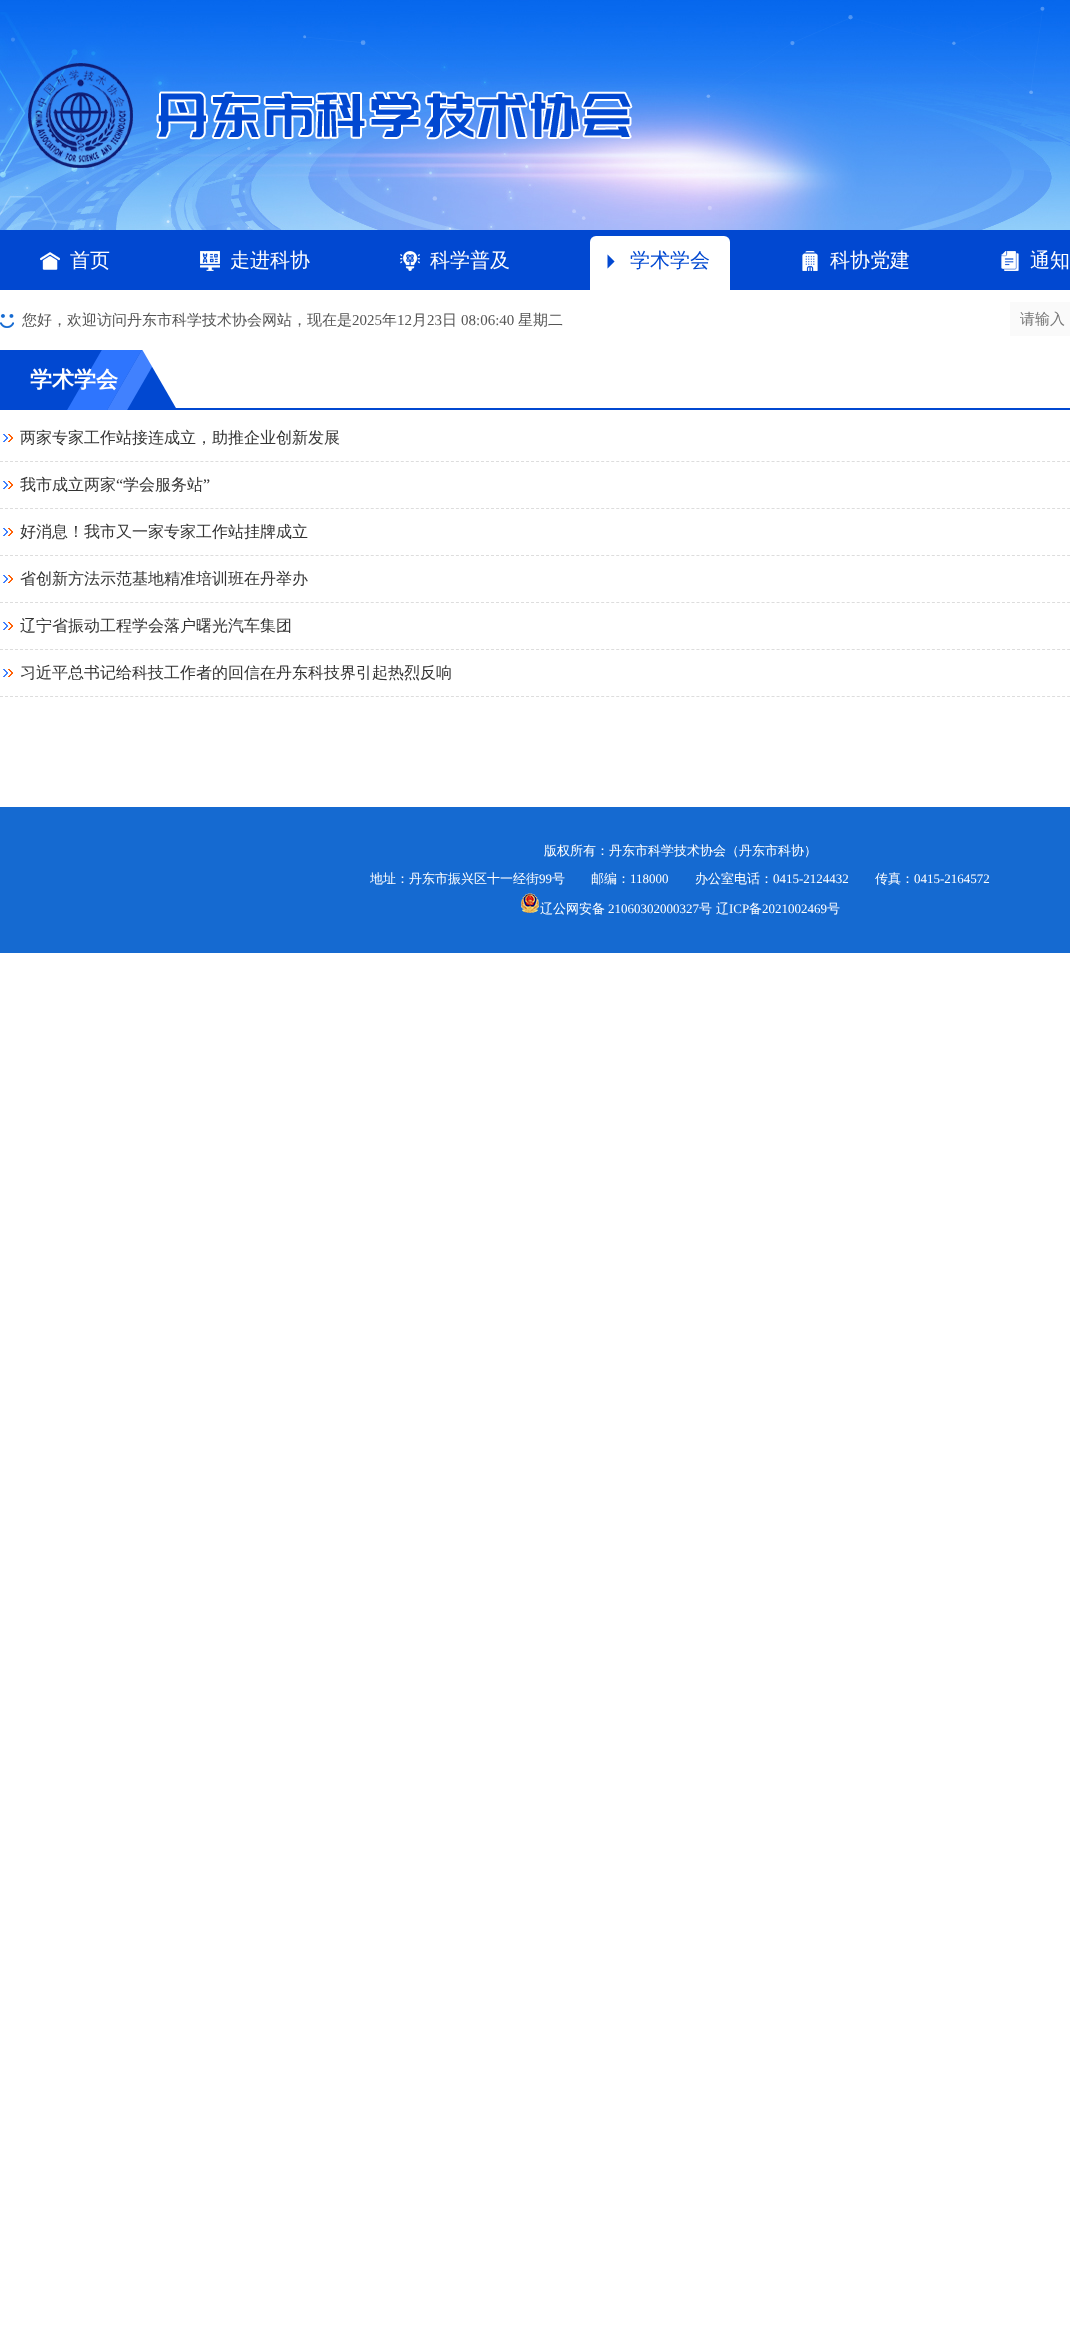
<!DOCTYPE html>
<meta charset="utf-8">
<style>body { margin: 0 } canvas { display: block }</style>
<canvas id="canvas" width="1070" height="2333"></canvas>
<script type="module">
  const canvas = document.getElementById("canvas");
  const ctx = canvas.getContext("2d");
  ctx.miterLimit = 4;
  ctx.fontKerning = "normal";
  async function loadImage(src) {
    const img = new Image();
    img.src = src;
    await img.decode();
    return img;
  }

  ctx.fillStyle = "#ffffff";
  ctx.fillRect(0, 0, 1070, 2333);
  ctx.drawImage(await loadImage("img1.png"), 0, 0, 1070, 12);
  ctx.drawImage(await loadImage("img2.png"), 0, 12, 1070, 218);
  ctx.drawImage(await loadImage("img3.png"), 11, 6, 1034, 214);
  ctx.drawImage(await loadImage("img4.png"), 28, 63, 605, 105);
  ctx.fillStyle = "#0148d1";
  ctx.fillRect(0, 230, 1070, 60);
  ctx.drawImage(await loadImage("img5.png"), 40, 252, 20, 18);
  ctx.font = "500 20px WenQuanYi Zen Hei";
  ctx.fillStyle = "#ffffff";
  ctx.fillText("首页", 70, 267);
  ctx.drawImage(await loadImage("img6.png"), 200, 251, 20, 20);
  ctx.fillText("走进科协", 230, 267);
  ctx.drawImage(await loadImage("img7.png"), 400, 251, 20, 20);
  ctx.fillText("科学普及", 430, 267);
  ctx.beginPath();
  ctx.roundRect(590, 236, 140, 54, [6, 6, 0, 0]);
  ctx.fill();
  ctx.drawImage(await loadImage("img8.png"), 607, 254, 8, 15);
  ctx.fillStyle = "#0148d1";
  ctx.fillText("学术学会", 630, 267);
  ctx.drawImage(await loadImage("img9.png"), 802, 251, 16, 20);
  ctx.fillStyle = "#ffffff";
  ctx.fillText("科协党建", 830, 267);
  ctx.drawImage(await loadImage("img10.png"), 1001, 251, 18, 20);
  ctx.fillText("通知", 1030, 267);
  ctx.drawImage(await loadImage("img11.png"), 0, 314, 14, 14);
  ctx.font = "500 15px WenQuanYi Zen Hei";
  ctx.fillStyle = "#555555";
  ctx.fillText("您好，欢迎访问丹东市科学技术协会网站，现在是", 22, 325);
  ctx.font = "15px Liberation Serif";
  ctx.fillText("2025", 352, 325);
  ctx.font = "500 15px WenQuanYi Zen Hei";
  ctx.fillText("年", 382, 325);
  ctx.font = "15px Liberation Serif";
  ctx.fillText("12", 397, 325);
  ctx.font = "500 15px WenQuanYi Zen Hei";
  ctx.fillText("月", 412, 325);
  ctx.font = "15px Liberation Serif";
  ctx.fillText("23", 427, 325);
  ctx.font = "500 15px WenQuanYi Zen Hei";
  ctx.fillText("日", 442, 325);
  ctx.font = "15px Liberation Serif";
  ctx.fillText("08:06:40", 461, 325);
  ctx.font = "500 15px WenQuanYi Zen Hei";
  ctx.fillText("星期二", 518, 325);
  ctx.fillStyle = "#fafafa";
  ctx.fillRect(1010, 302, 60, 34);
  ctx.fillStyle = "#757575";
  ctx.fillText("请输入", 1020, 324);
  ctx.fillStyle = "#0148d1";
  ctx.fillRect(176, 408, 894, 2);
  ctx.drawImage(await loadImage("img12.png"), 0, 350, 176, 60);
  ctx.font = "bold 22px WenQuanYi Zen Hei";
  ctx.fillStyle = "#ffffff";
  ctx.fillText("学术学会", 30, 387);
  ctx.beginPath();
  ctx.moveTo(0, 461.5);
  ctx.lineTo(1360, 461.5);
  ctx.strokeStyle = "#dddddd";
  ctx.setLineDash([3, 2.01]);
  ctx.stroke();
  ctx.drawImage(await loadImage("img13.png"), 3, 434, 10, 8);
  ctx.font = "500 16px WenQuanYi Zen Hei";
  ctx.fillStyle = "#333333";
  ctx.fillText("两家专家工作站接连成立，助推企业创新发展", 20, 443);
  ctx.beginPath();
  ctx.moveTo(0, 508.5);
  ctx.lineTo(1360, 508.5);
  ctx.stroke();
  ctx.drawImage(await loadImage("img13.png"), 3, 481, 10, 8);
  ctx.fillText("我市成立两家", 20, 490);
  ctx.font = "16px Liberation Serif";
  ctx.fillText("“", 116, 490);
  ctx.font = "500 16px WenQuanYi Zen Hei";
  ctx.fillText("学会服务站", 123, 490);
  ctx.font = "16px Liberation Serif";
  ctx.fillText("”", 203, 490);
  ctx.beginPath();
  ctx.moveTo(0, 555.5);
  ctx.lineTo(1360, 555.5);
  ctx.stroke();
  ctx.drawImage(await loadImage("img13.png"), 3, 528, 10, 8);
  ctx.font = "500 16px WenQuanYi Zen Hei";
  ctx.fillText("好消息！我市又一家专家工作站挂牌成立", 20, 537);
  ctx.beginPath();
  ctx.moveTo(0, 602.5);
  ctx.lineTo(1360, 602.5);
  ctx.stroke();
  ctx.drawImage(await loadImage("img13.png"), 3, 575, 10, 8);
  ctx.fillText("省创新方法示范基地精准培训班在丹举办", 20, 584);
  ctx.beginPath();
  ctx.moveTo(0, 649.5);
  ctx.lineTo(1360, 649.5);
  ctx.stroke();
  ctx.drawImage(await loadImage("img13.png"), 3, 622, 10, 8);
  ctx.fillText("辽宁省振动工程学会落户曙光汽车集团", 20, 631);
  ctx.beginPath();
  ctx.moveTo(0, 696.5);
  ctx.lineTo(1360, 696.5);
  ctx.stroke();
  ctx.drawImage(await loadImage("img13.png"), 3, 669, 10, 8);
  ctx.fillText("习近平总书记给科技工作者的回信在丹东科技界引起热烈反响", 20, 678);
  ctx.fillStyle = "#156ad1";
  ctx.fillRect(0, 807, 1070, 146);
  ctx.font = "500 13px WenQuanYi Zen Hei";
  ctx.fillStyle = "#ffffff";
  ctx.fillText("版权所有：丹东市科学技术协会（丹东市科协）", 544, 855);
  ctx.fillText("地址：丹东市振兴区十一经街", 370, 883);
  ctx.font = "13px Liberation Serif";
  ctx.fillText("99", 539, 883);
  ctx.font = "500 13px WenQuanYi Zen Hei";
  ctx.fillText("号　　邮编：", 552, 883);
  ctx.font = "13px Liberation Serif";
  ctx.fillText("118000", 630, 883);
  ctx.font = "500 13px WenQuanYi Zen Hei";
  ctx.fillText("办公室电话：", 695, 883);
  ctx.font = "13px Liberation Serif";
  ctx.fillText("0415-2124432", 773, 883);
  ctx.font = "500 13px WenQuanYi Zen Hei";
  ctx.fillText("传真：", 875, 883);
  ctx.font = "13px Liberation Serif";
  ctx.fillText("0415-2164572", 914, 883);
  ctx.drawImage(await loadImage("img14.png"), 521, 893, 18, 20);
  ctx.font = "500 13px WenQuanYi Zen Hei";
  ctx.fillText("辽公网安备", 540, 913);
  ctx.font = "13px Liberation Serif";
  ctx.fillText("21060302000327", 608, 913);
  ctx.font = "500 13px WenQuanYi Zen Hei";
  ctx.fillText("号", 699, 913);
  ctx.fillText("辽", 716, 913);
  ctx.font = "13px Liberation Serif";
  ctx.fillText("ICP", 729, 913);
  ctx.font = "500 13px WenQuanYi Zen Hei";
  ctx.fillText("备", 749, 913);
  ctx.font = "13px Liberation Serif";
  ctx.fillText("2021002469", 762, 913);
  ctx.font = "500 13px WenQuanYi Zen Hei";
  ctx.fillText("号", 827, 913);
</script>
